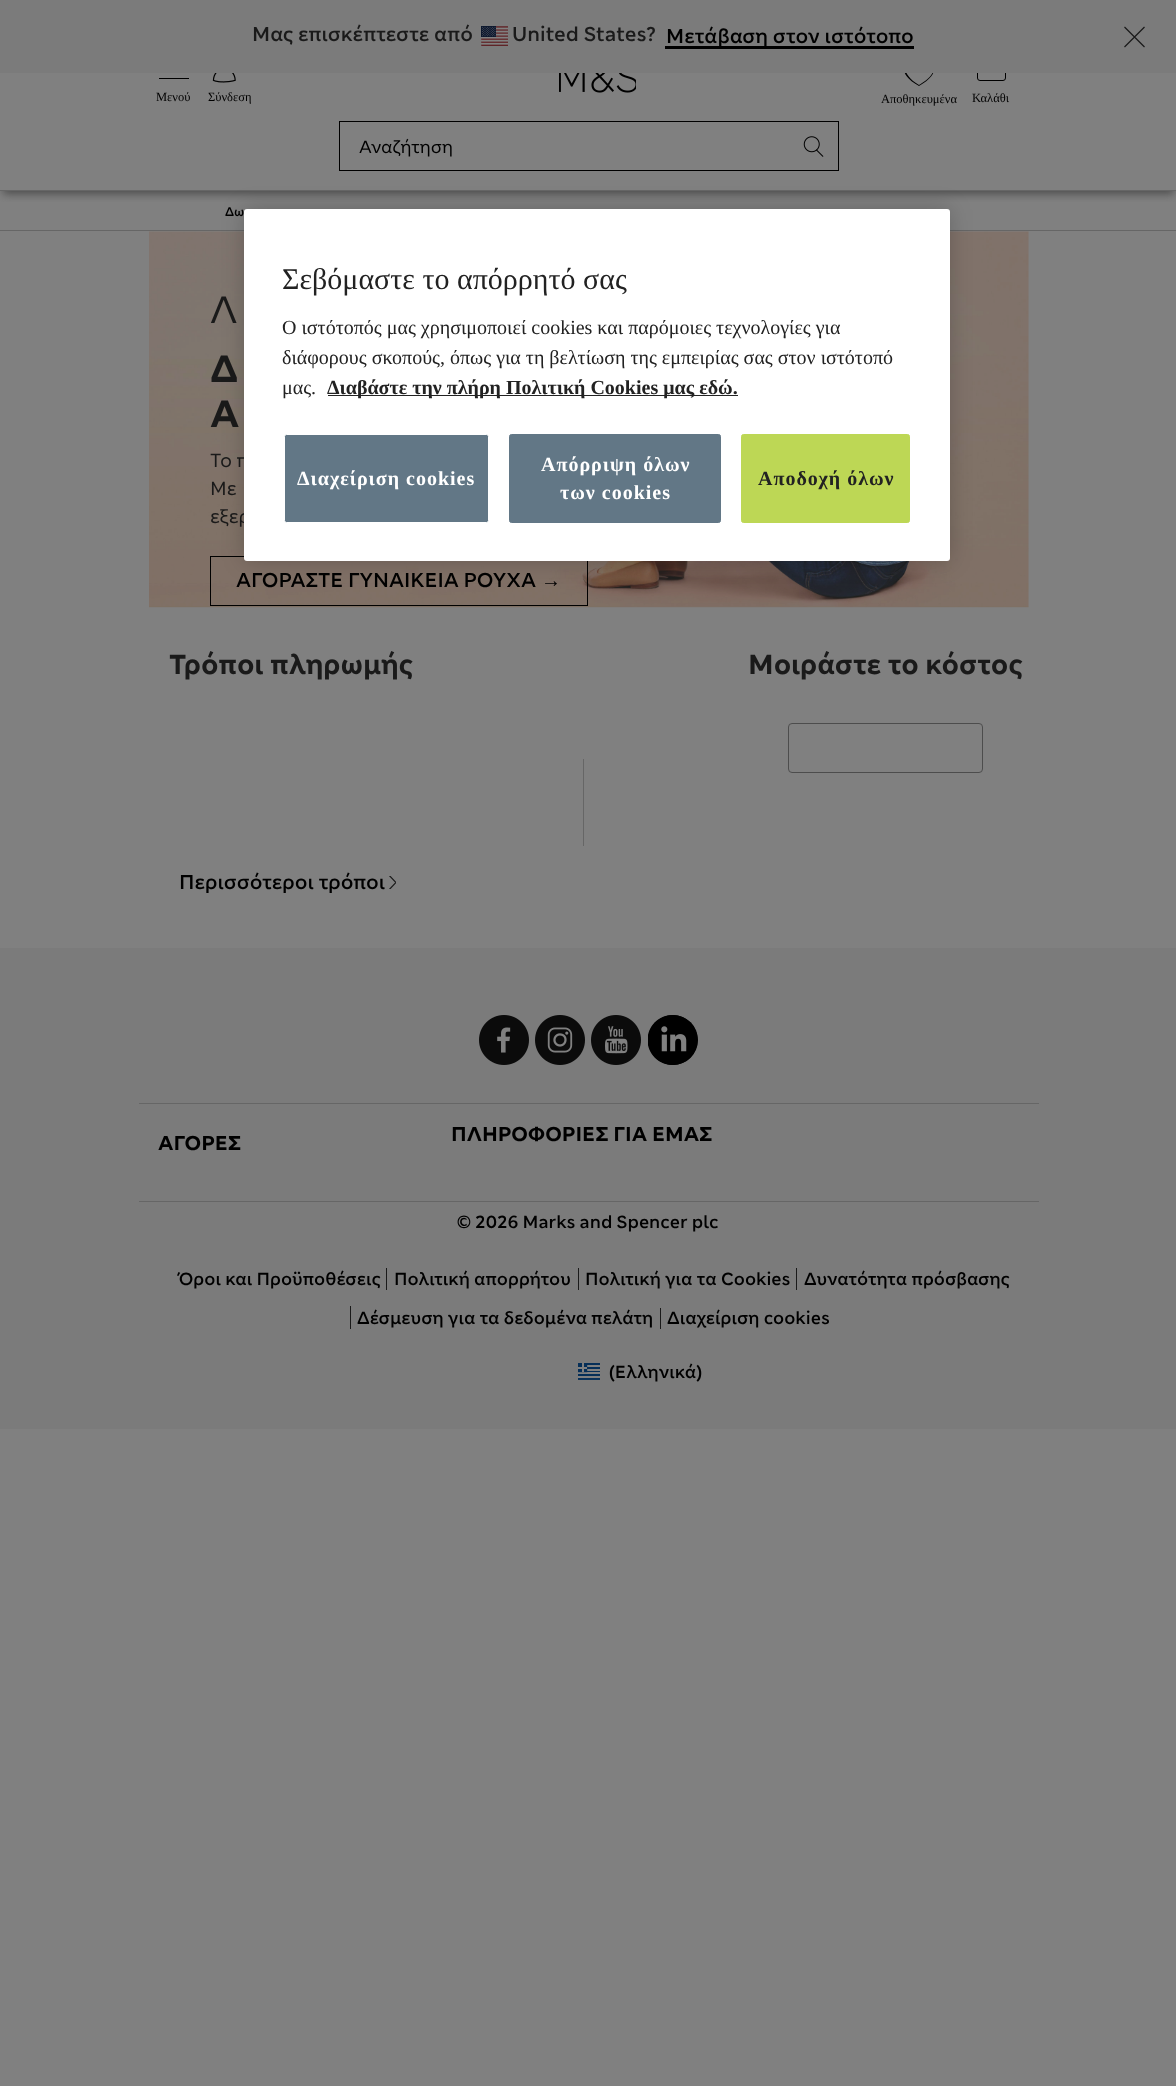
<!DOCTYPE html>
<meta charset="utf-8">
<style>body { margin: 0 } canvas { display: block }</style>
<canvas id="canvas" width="1176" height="2086"></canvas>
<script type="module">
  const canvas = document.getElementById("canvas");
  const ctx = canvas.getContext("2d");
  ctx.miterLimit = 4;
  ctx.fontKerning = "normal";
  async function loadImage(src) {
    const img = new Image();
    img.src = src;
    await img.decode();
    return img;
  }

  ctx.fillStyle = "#808080";
  ctx.fillRect(0, 0, 1176, 2086);
  ctx.save();
  ctx.beginPath();
  ctx.rect(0, 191, 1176, 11);
  ctx.clip();
  ctx.fillStyle = "#4d4d4d";
  ctx.filter = "blur(4px)";
  ctx.beginPath();
  ctx.rect(3, 8, 1171, 186);
  ctx.fill();
  ctx.filter = "none";
  ctx.restore();
  ctx.fillStyle = "#000000";
  ctx.beginPath();
  ctx.moveTo(919, 86);
  ctx.bezierCurveTo(889, 70, 911, 50, 919, 63);
  ctx.bezierCurveTo(928, 50, 949, 70, 919, 86);
  ctx.closePath();
  ctx.moveTo(933, 64);
  ctx.bezierCurveTo(929, 57, 922, 60, 919, 66);
  ctx.bezierCurveTo(910, 50, 893, 70, 919, 85);
  ctx.bezierCurveTo(926, 81, 937, 73, 933, 64);
  ctx.closePath();
  ctx.fill();
  ctx.beginPath();
  ctx.roundRect(977.5, 60.5, 28, 20, 2.5);
  ctx.strokeStyle = "#000000";
  ctx.stroke();
  ctx.fillStyle = "#7b7b7b";
  ctx.fillRect(0, 0, 1176, 73);
  ctx.font = "600 20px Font";
  ctx.fillStyle = "#1a1a1a";
  ctx.fillText("Μας επισκέπτεστε από", 252, 41);
  ctx.drawImage(await loadImage("img1.png"), 481, 26, 27, 20);
  ctx.fillText("United States?", 512, 41);
  ctx.fillStyle = "#000000";
  ctx.fillRect(665, 46, 249, 3);
  ctx.fillText("Μετάβαση στον ιστότοπο", 666, 43);
  ctx.beginPath();
  ctx.moveTo(1124.5, 27);
  ctx.lineTo(1144.5, 47);
  ctx.moveTo(1144.5, 27);
  ctx.lineTo(1124.5, 47);
  ctx.strokeStyle = "#1a1a1a";
  ctx.lineWidth = 1.2;
  ctx.stroke();
  ctx.fillStyle = "#666666";
  ctx.fillRect(0, 190, 1176, 1);
  ctx.drawImage(await loadImage("img2.png"), 559, 73, 77, 20);
  ctx.fillStyle = "#000000";
  ctx.fillRect(159, 78, 30, 1);
  ctx.font = "12.5px Liberation Serif";
  ctx.fillText("Μενού", 156, 101);
  ctx.drawImage(await loadImage("img3.png"), 212, 73, 24, 10);
  ctx.fillText("Σύνδεση", 208, 101);
  ctx.fillText("Αποθηκευμένα", 881, 103);
  ctx.fillText("Καλάθι", 972, 102);
  ctx.strokeStyle = "#000000";
  ctx.lineWidth = 1;
  ctx.strokeRect(339.5, 121.5, 499, 49);
  ctx.font = "17.5px Font";
  ctx.fillText("Αναζήτηση", 359, 153);
  ctx.drawImage(await loadImage("img4.png"), 803, 136, 21, 21);
  ctx.fillStyle = "#666666";
  ctx.fillRect(0, 230, 1176, 1);
  ctx.font = "600 12.5px Font";
  ctx.fillStyle = "#000000";
  ctx.fillText("Δω", 225, 216);
  ctx.drawImage(await loadImage("img5.png"), 149, 231, 880, 377);
  ctx.font = "38px Font";
  ctx.fillStyle = "#1a1a1a";
  ctx.fillText("Λ", 210, 323);
  ctx.font = "bold 38px Font";
  ctx.fillText("Δ", 210, 382);
  ctx.fillText("Α", 210, 427);
  ctx.font = "19px Font";
  ctx.fillText("Το π", 210, 467);
  ctx.fillText("Με", 210, 495);
  ctx.fillText("εξερ", 210, 523);
  ctx.strokeRect(210.5, 556.5, 377, 49);
  ctx.font = "600 20px Font";
  ctx.fillStyle = "#000000";
  ctx.fillText("ΑΓΟΡΑΣΤΕ ΓΥΝΑΙΚΕΙΑ ΡΟΥΧΑ", 236, 587);
  ctx.font = "20px Liberation Serif";
  ctx.fillText("→", 541, 587);
  ctx.font = "bold 27.5px Font";
  ctx.fillStyle = "#1a1a1a";
  ctx.fillText("Τρόποι πληρωμής", 169, 674);
  ctx.font = "600 20px Font";
  ctx.fillStyle = "#000000";
  ctx.fillText("Περισσότεροι τρόποι", 179, 889);
  ctx.save();
  ctx.beginPath();
  ctx.rect(384, 876, 12, 13);
  ctx.clip();
  ctx.beginPath();
  ctx.moveTo(385, 871);
  ctx.lineTo(396, 882.5);
  ctx.lineTo(385, 894);
  ctx.strokeStyle = "#1a1a1a";
  ctx.lineWidth = 1.2;
  ctx.stroke();
  ctx.restore();
  ctx.font = "bold 27.5px Font";
  ctx.fillStyle = "#1a1a1a";
  ctx.fillText("Μοιράστε το κόστος", 748, 674);
  ctx.beginPath();
  ctx.roundRect(788.5, 723.5, 194, 49, 3.5);
  ctx.strokeStyle = "#4d4d4d";
  ctx.stroke();
  ctx.fillStyle = "#666666";
  ctx.fillRect(583, 759, 1, 87);
  ctx.fillStyle = "#7b7b7b";
  ctx.fillRect(0, 948, 1176, 481);
  ctx.drawImage(await loadImage("img6.png"), 479, 1015, 50, 50);
  ctx.drawImage(await loadImage("img7.png"), 535, 1015, 50, 50);
  ctx.drawImage(await loadImage("img8.png"), 591, 1015, 50, 50);
  ctx.fillStyle = "#000000";
  ctx.beginPath();
  ctx.arc(673, 1040, 25, 0, Math.PI * 2);
  ctx.fill();
  ctx.drawImage(await loadImage("img9.png"), 648, 1015, 50, 50);
  ctx.fillStyle = "#666666";
  ctx.fillRect(139, 1103, 900, 1);
  ctx.fillRect(139, 1201, 900, 1);
  ctx.font = "bold 20px Font";
  ctx.fillStyle = "#000000";
  ctx.fillText("ΑΓΟΡΕΣ", 158, 1150);
  ctx.fillText("ΠΛΗΡΟΦΟΡΙΕΣ ΓΙΑ ΕΜΑΣ", 451, 1141);
  ctx.font = "600 17.5px Font";
  ctx.fillText("© 2026 Marks and Spencer plc", 457, 1228);
  ctx.fillText("Όροι και Προϋποθέσεις", 177, 1285);
  ctx.fillText("Πολιτική απορρήτου", 394, 1285);
  ctx.fillStyle = "#1a1a1a";
  ctx.fillRect(386, 1268, 1, 22);
  ctx.fillStyle = "#000000";
  ctx.fillText("Πολιτική για τα Cookies", 585, 1285);
  ctx.fillStyle = "#1a1a1a";
  ctx.fillRect(578, 1268, 1, 22);
  ctx.fillStyle = "#000000";
  ctx.fillText("Δυνατότητα πρόσβασης", 804, 1285);
  ctx.fillStyle = "#1a1a1a";
  ctx.fillRect(796, 1268, 1, 22);
  ctx.fillStyle = "#000000";
  ctx.fillText("Δέσμευση για τα δεδομένα πελάτη", 357, 1324);
  ctx.fillStyle = "#1a1a1a";
  ctx.fillRect(350, 1306, 1, 23);
  ctx.fillRect(660, 1308, 1, 21);
  ctx.fillStyle = "#000000";
  ctx.fillText("Διαχείριση cookies", 667, 1324);
  ctx.drawImage(await loadImage("img10.png"), 578, 1363, 22, 17);
  ctx.fillText("(Ελληνικά)", 609, 1378);
  ctx.fillStyle = "rgba(0, 0, 0, 0.2)";
  ctx.filter = "blur(11px)";
  ctx.beginPath();
  ctx.roundRect(244, 209, 706, 352, 3);
  ctx.fill();
  ctx.filter = "none";
  ctx.fillStyle = "#ffffff";
  ctx.beginPath();
  ctx.roundRect(244, 209, 706, 352, 3);
  ctx.fill();
  ctx.font = "30px Liberation Serif";
  ctx.fillStyle = "#222222";
  ctx.fillText("Σεβόμαστε το απόρρητό σας", 282, 289);
  ctx.font = "20px Liberation Serif";
  ctx.fillText("Ο ιστότοπός μας χρησιμοποιεί cookies και παρόμοιες τεχνολογίες για", 282, 334);
  ctx.fillText("διάφορους σκοπούς, όπως για τη βελτίωση της εμπειρίας σας στον ιστότοπό", 282, 364);
  ctx.fillText("μας.", 282, 394);
  ctx.fillRect(328, 395, 410, 1);
  ctx.font = "bold 20px Liberation Serif";
  ctx.fillText("Διαβάστε την πλήρη Πολιτική Cookies μας εδώ.", 327, 394);
  ctx.fillStyle = "#627786";
  ctx.beginPath();
  ctx.roundRect(284.5, 434.5, 204, 88, 2);
  ctx.fill();
  ctx.strokeStyle = "#ffffff";
  ctx.stroke();
  ctx.letterSpacing = "1px";
  ctx.fillStyle = "#ffffff";
  ctx.fillText("Διαχείριση cookies", 297, 485);
  ctx.fillStyle = "#627786";
  ctx.beginPath();
  ctx.roundRect(509.5, 434.5, 211, 88, 2);
  ctx.fill();
  ctx.strokeStyle = "#627786";
  ctx.stroke();
  ctx.fillStyle = "#ffffff";
  ctx.fillText("Απόρριψη όλων", 541, 471);
  ctx.fillText("των cookies", 560, 499);
  ctx.fillStyle = "#bdd755";
  ctx.beginPath();
  ctx.roundRect(741.5, 434.5, 168, 88, 2);
  ctx.fill();
  ctx.strokeStyle = "#bdd755";
  ctx.stroke();
  ctx.fillStyle = "#222222";
  ctx.fillText("Αποδοχή όλων", 758, 485);
</script>
